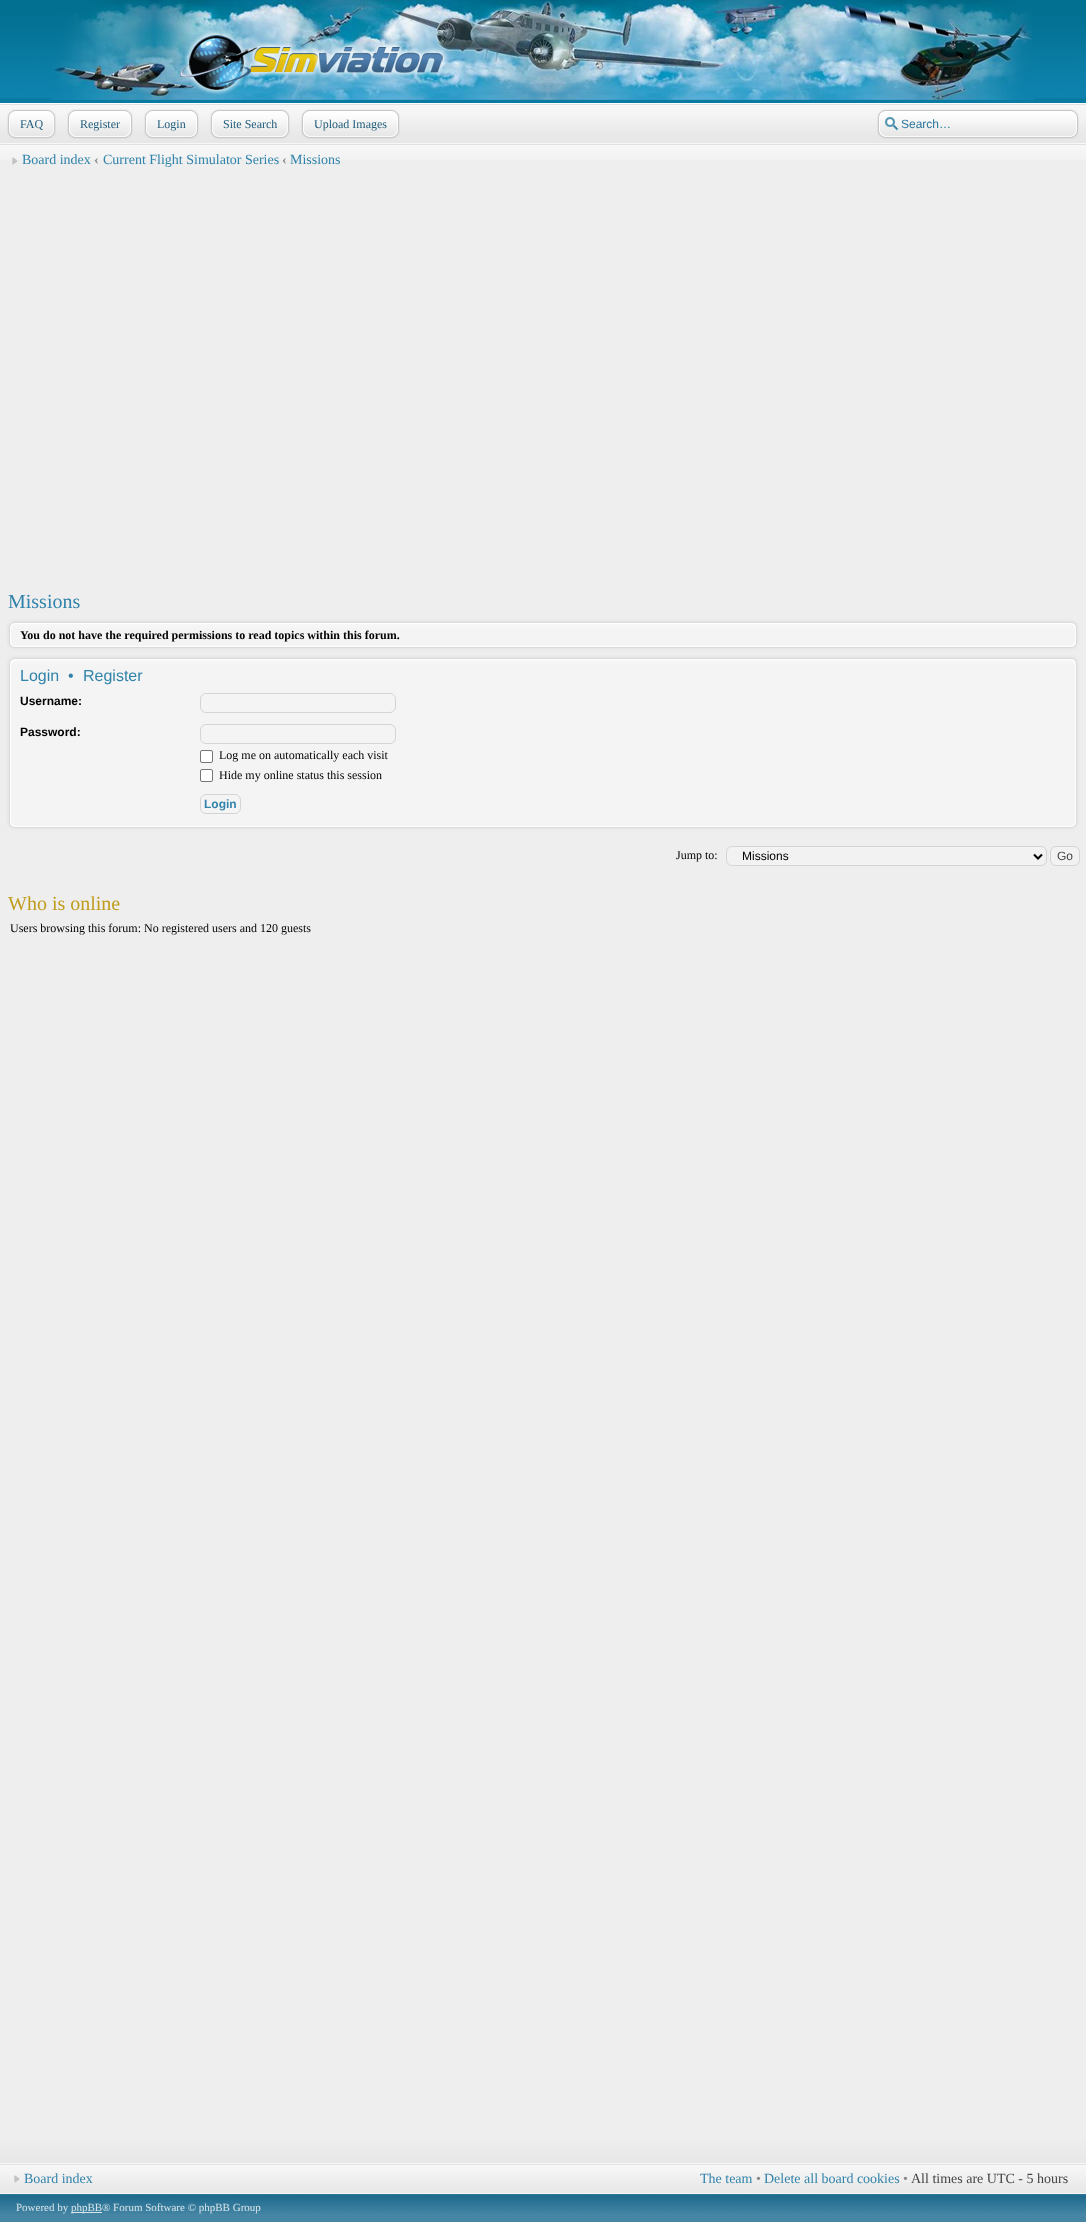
<!DOCTYPE html>
<meta charset="utf-8">
<style>body { margin: 0 } canvas { display: block }</style>
<canvas id="canvas" width="1086" height="2222"></canvas>
<script type="module">
  const canvas = document.getElementById("canvas");
  const ctx = canvas.getContext("2d");
  ctx.miterLimit = 4;
  ctx.fontKerning = "normal";
  async function loadImage(src) {
    const img = new Image();
    img.src = src;
    await img.decode();
    return img;
  }

  ctx.fillStyle = "#eeeeee";
  ctx.fillRect(0, 0, 1086, 2222);
  ctx.fillStyle = "#097ba3";
  ctx.fillRect(0, 98, 1086, 5);
  ctx.drawImage(await loadImage("img1.png"), 0, 0, 1086, 98);
  ctx.fillStyle = "#ffffff";
  ctx.fillRect(0, 103, 1086, 1);
  ctx.drawImage(await loadImage("img2.png"), 51, 0, 984, 100);
  ctx.drawImage(await loadImage("img3.png"), 0, 104, 1086, 40);
  ctx.drawImage(await loadImage("img4.png"), 16, 109, 40, 30);
  ctx.drawImage(await loadImage("img5.png"), 7, 109, 9, 30);
  ctx.font = "12px Liberation Serif";
  ctx.fillStyle = "#205d7a";
  ctx.fillText("FAQ", 20, 128);
  ctx.drawImage(await loadImage("img6.png"), 76, 109, 57, 30);
  ctx.drawImage(await loadImage("img5.png"), 67, 109, 9, 30);
  ctx.fillText("Register", 80, 128);
  ctx.drawImage(await loadImage("img7.png"), 153, 109, 46, 30);
  ctx.drawImage(await loadImage("img5.png"), 144, 109, 9, 30);
  ctx.fillText("Login", 157, 128);
  ctx.drawImage(await loadImage("img8.png"), 219, 109, 71, 30);
  ctx.drawImage(await loadImage("img5.png"), 210, 109, 9, 30);
  ctx.fillText("Site Search", 223, 128);
  ctx.drawImage(await loadImage("img9.png"), 310, 109, 90, 30);
  ctx.drawImage(await loadImage("img5.png"), 301, 109, 9, 30);
  ctx.fillText("Upload Images", 314, 128);
  ctx.drawImage(await loadImage("img10.png"), 877, 109, 202, 30);
  ctx.font = "12px Liberation Sans";
  ctx.fillStyle = "#28769a";
  ctx.fillText("Search…", 901, 128);
  ctx.drawImage(await loadImage("img11.png"), 0, 144, 1086, 16);
  ctx.drawImage(await loadImage("img12.png"), 12, 157, 6, 8);
  ctx.font = "14px Liberation Serif";
  ctx.fillStyle = "#3083aa";
  ctx.fillText("Board index", 22, 164);
  ctx.font = "bold 14px Liberation Serif";
  ctx.fillStyle = "#888888";
  ctx.fillText("‹", 94, 164);
  ctx.font = "14px Liberation Serif";
  ctx.fillStyle = "#3083aa";
  ctx.fillText("Current Flight Simulator Series", 103, 164);
  ctx.font = "bold 14px Liberation Serif";
  ctx.fillStyle = "#888888";
  ctx.fillText("‹", 282, 164);
  ctx.font = "14px Liberation Serif";
  ctx.fillStyle = "#3083aa";
  ctx.fillText("Missions", 290, 164);
  ctx.font = "20px Liberation Serif";
  ctx.fillText("Missions", 8, 608);
  ctx.fillStyle = "#f4f4f4";
  ctx.fillRect(12, 629, 1062, 17);
  ctx.drawImage(await loadImage("img13.png"), 6, 619, 1074, 32);
  ctx.font = "bold 12px Liberation Serif";
  ctx.fillStyle = "#000000";
  ctx.fillText("You do not have the required permissions to read topics within this forum.", 20, 639);
  ctx.fillStyle = "#f4f4f4";
  ctx.fillRect(12, 665, 1062, 161);
  ctx.drawImage(await loadImage("img14.png"), 6, 655, 1074, 176);
  ctx.font = "16px Liberation Sans";
  ctx.fillStyle = "#3083aa";
  ctx.fillText("Login", 20, 681);
  ctx.fillText("•", 68, 681);
  ctx.fillText("Register", 83, 681);
  ctx.font = "bold 12px Liberation Sans";
  ctx.fillStyle = "#000000";
  ctx.fillText("Username:", 20, 705);
  ctx.beginPath();
  ctx.roundRect(200.5, 693.5, 195, 19, 5.5);
  ctx.strokeStyle = "#d4d4d4";
  ctx.stroke();
  ctx.fillText("Password:", 20, 736);
  ctx.beginPath();
  ctx.roundRect(200.5, 724.5, 195, 19, 5.5);
  ctx.stroke();
  ctx.fillStyle = "#ffffff";
  ctx.beginPath();
  ctx.roundRect(200.5, 750.5, 12, 12, 1.5);
  ctx.fill();
  ctx.strokeStyle = "#767676";
  ctx.stroke();
  ctx.font = "12px Liberation Serif";
  ctx.fillStyle = "#000000";
  ctx.fillText("Log me on automatically each visit", 219, 759);
  ctx.fillStyle = "#ffffff";
  ctx.beginPath();
  ctx.roundRect(200.5, 769.5, 12, 12, 1.5);
  ctx.fill();
  ctx.stroke();
  ctx.fillStyle = "#000000";
  ctx.fillText("Hide my online status this session", 219, 779);
  ctx.beginPath();
  ctx.roundRect(200.5, 794.5, 40, 19, 5.5);
  ctx.strokeStyle = "#d4d4d4";
  ctx.stroke();
  ctx.font = "bold 12px Liberation Sans";
  ctx.fillStyle = "#3083aa";
  ctx.fillText("Login", 204, 808);
  ctx.font = "12px Liberation Serif";
  ctx.fillStyle = "#000000";
  ctx.fillText("Jump to:", 676, 859);
  ctx.fillStyle = "#f2f2f2";
  ctx.beginPath();
  ctx.roundRect(726.5, 846.5, 320, 19, 5.5);
  ctx.fill();
  ctx.stroke();
  ctx.beginPath();
  ctx.moveTo(1034, 854.5);
  ctx.lineTo(1038, 858.5);
  ctx.lineTo(1042, 854.5);
  ctx.strokeStyle = "#000000";
  ctx.lineWidth = 2;
  ctx.stroke();
  ctx.font = "12px Liberation Sans";
  ctx.fillStyle = "#000000";
  ctx.fillText("Missions", 742, 860);
  ctx.fillStyle = "#f2f2f2";
  ctx.beginPath();
  ctx.roundRect(1050.5, 846.5, 29, 19, 5.5);
  ctx.fill();
  ctx.strokeStyle = "#d4d4d4";
  ctx.lineWidth = 1;
  ctx.stroke();
  ctx.fillStyle = "#444444";
  ctx.fillText("Go", 1057, 860);
  ctx.font = "20px Liberation Serif";
  ctx.fillStyle = "#c09c1b";
  ctx.fillText("Who is online", 8, 910);
  ctx.font = "12px Liberation Serif";
  ctx.fillStyle = "#000000";
  ctx.fillText("Users browsing this forum: No registered users and 120 guests", 10, 932);
  ctx.fillStyle = "#4685a3";
  ctx.fillRect(0, 2214, 1086, 8);
  ctx.drawImage(await loadImage("img15.png"), 0, 2134, 1086, 80);
  ctx.drawImage(await loadImage("img16.png"), 14, 2175, 6, 8);
  ctx.font = "14px Liberation Serif";
  ctx.fillStyle = "#3083aa";
  ctx.fillText("Board index", 24, 2183);
  ctx.fillText("The team", 700, 2183);
  ctx.fillStyle = "#888888";
  ctx.fillText("•", 756, 2183);
  ctx.fillStyle = "#3083aa";
  ctx.fillText("Delete all board cookies", 764, 2183);
  ctx.fillStyle = "#888888";
  ctx.fillText("•", 903, 2183);
  ctx.fillStyle = "#444444";
  ctx.fillText("All times are UTC - 5 hours", 911, 2183);
  ctx.font = "11px Liberation Serif";
  ctx.fillStyle = "#d7e5eb";
  ctx.fillText("Powered by", 16, 2211);
  ctx.fillStyle = "rgba(255, 255, 255, 0.8)";
  ctx.fillRect(71, 2212, 31, 1);
  ctx.fillStyle = "#d7e5eb";
  ctx.fillText("phpBB", 71, 2211);
  ctx.fillText("® Forum Software © phpBB Group", 102, 2211);
</script>
